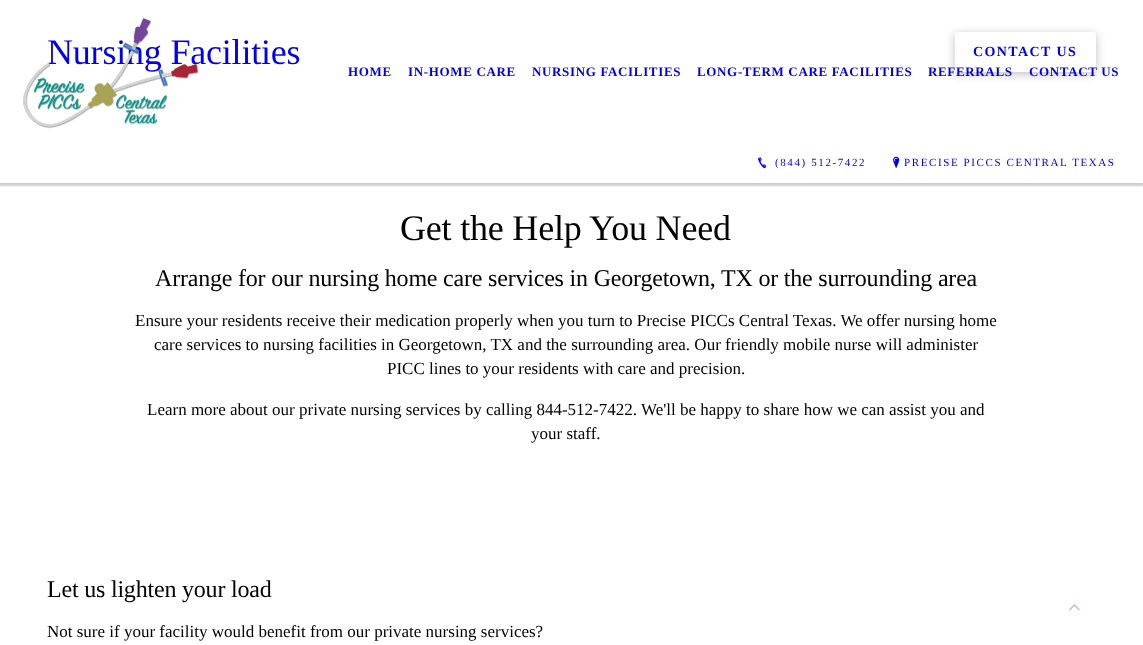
<!DOCTYPE html>
<meta charset="utf-8">
<style>body { margin: 0 } canvas { display: block }</style>
<canvas id="canvas" width="1143" height="645"></canvas>
<script type="module">
  const canvas = document.getElementById("canvas");
  const ctx = canvas.getContext("2d");
  ctx.miterLimit = 4;
  ctx.fontKerning = "normal";
  async function loadImage(src) {
    const img = new Image();
    img.src = src;
    await img.decode();
    return img;
  }

  ctx.fillStyle = "#ffffff";
  ctx.fillRect(0, 0, 1143, 645);
  ctx.letterSpacing = "-0.2px";
  ctx.font = "36px Liberation Serif";
  ctx.fillStyle = "#0000ee";
  ctx.fillText("Nursing Facilities", 47, 64);
  ctx.save();
  ctx.beginPath();
  ctx.moveTo(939, 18);
  ctx.lineTo(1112, 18);
  ctx.lineTo(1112, 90);
  ctx.lineTo(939, 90);
  ctx.closePath();
  ctx.moveTo(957, 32);
  ctx.lineTo(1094, 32);
  ctx.bezierCurveTo(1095, 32, 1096, 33, 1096, 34);
  ctx.lineTo(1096, 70);
  ctx.bezierCurveTo(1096, 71, 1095, 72, 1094, 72);
  ctx.lineTo(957, 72);
  ctx.bezierCurveTo(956, 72, 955, 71, 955, 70);
  ctx.lineTo(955, 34);
  ctx.bezierCurveTo(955, 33, 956, 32, 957, 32);
  ctx.closePath();
  ctx.clip("evenodd");
  ctx.fillStyle = "rgba(0, 0, 0, 0.25)";
  ctx.filter = "blur(5px)";
  ctx.beginPath();
  ctx.roundRect(955, 34, 141, 40, 2);
  ctx.fill();
  ctx.filter = "none";
  ctx.restore();
  ctx.letterSpacing = "1.4px";
  ctx.font = "bold 14px Liberation Serif";
  ctx.fillText("CONTACT US", 973, 56);
  ctx.letterSpacing = "-0.2px";
  ctx.font = "36px Liberation Serif";
  ctx.fillStyle = "#000000";
  ctx.fillText("Get the Help You Need", 400, 240);
  ctx.font = "24px Liberation Serif";
  ctx.fillText("Arrange for our nursing home care services in Georgetown, TX or the surrounding area", 155, 286);
  ctx.letterSpacing = "0px";
  ctx.font = "17px Liberation Serif";
  ctx.fillText("Ensure your residents receive their medication properly when you turn to Precise PICCs Central Texas. We offer nursing home", 135, 326);
  ctx.fillText("care services to nursing facilities in Georgetown, TX and the surrounding area. Our friendly mobile nurse will administer", 154, 350);
  ctx.fillText("PICC lines to your residents with care and precision.", 387, 374);
  ctx.fillText("Learn more about our private nursing services by calling 844-512-7422. We'll be happy to share how we can assist you and", 147, 415);
  ctx.fillText("your staff.", 531, 439);
  ctx.letterSpacing = "-0.2px";
  ctx.font = "24px Liberation Serif";
  ctx.fillText("Let us lighten your load", 47, 597);
  ctx.letterSpacing = "0px";
  ctx.font = "17px Liberation Serif";
  ctx.fillText("Not sure if your facility would benefit from our private nursing services?", 47, 637);
  ctx.drawImage(await loadImage("img1.png"), 23, 18, 176, 111);
  ctx.letterSpacing = "0.65px";
  ctx.font = "bold 13px Liberation Serif";
  ctx.fillStyle = "#0000ee";
  ctx.fillText("HOME", 348, 76);
  ctx.fillText("IN-HOME CARE", 408, 76);
  ctx.fillText("NURSING FACILITIES", 532, 76);
  ctx.fillText("LONG-TERM CARE FACILITIES", 697, 76);
  ctx.fillText("REFERRALS", 928, 76);
  ctx.fillText("CONTACT US", 1029, 76);
  ctx.save();
  ctx.beginPath();
  ctx.rect(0, 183, 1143, 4);
  ctx.clip();
  ctx.fillStyle = "rgba(0, 0, 0, 0.2)";
  ctx.filter = "blur(1px)";
  ctx.beginPath();
  ctx.rect(-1, 146, 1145, 40);
  ctx.fill();
  ctx.filter = "none";
  ctx.restore();
  ctx.drawImage(await loadImage("img2.png"), 758, 157, 9, 12);
  ctx.letterSpacing = "1.6px";
  ctx.font = "11px Liberation Serif";
  ctx.fillText("(844) 512-7422", 775, 166);
  ctx.drawImage(await loadImage("img3.png"), 893, 156, 7, 13);
  ctx.fillText("PRECISE PICCS CENTRAL TEXAS", 904, 166);
  ctx.letterSpacing = "0px";
  ctx.font = "14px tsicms";
  ctx.fillStyle = "#b3b3fa";
  ctx.fillText("+", 1069, 613);
</script>
